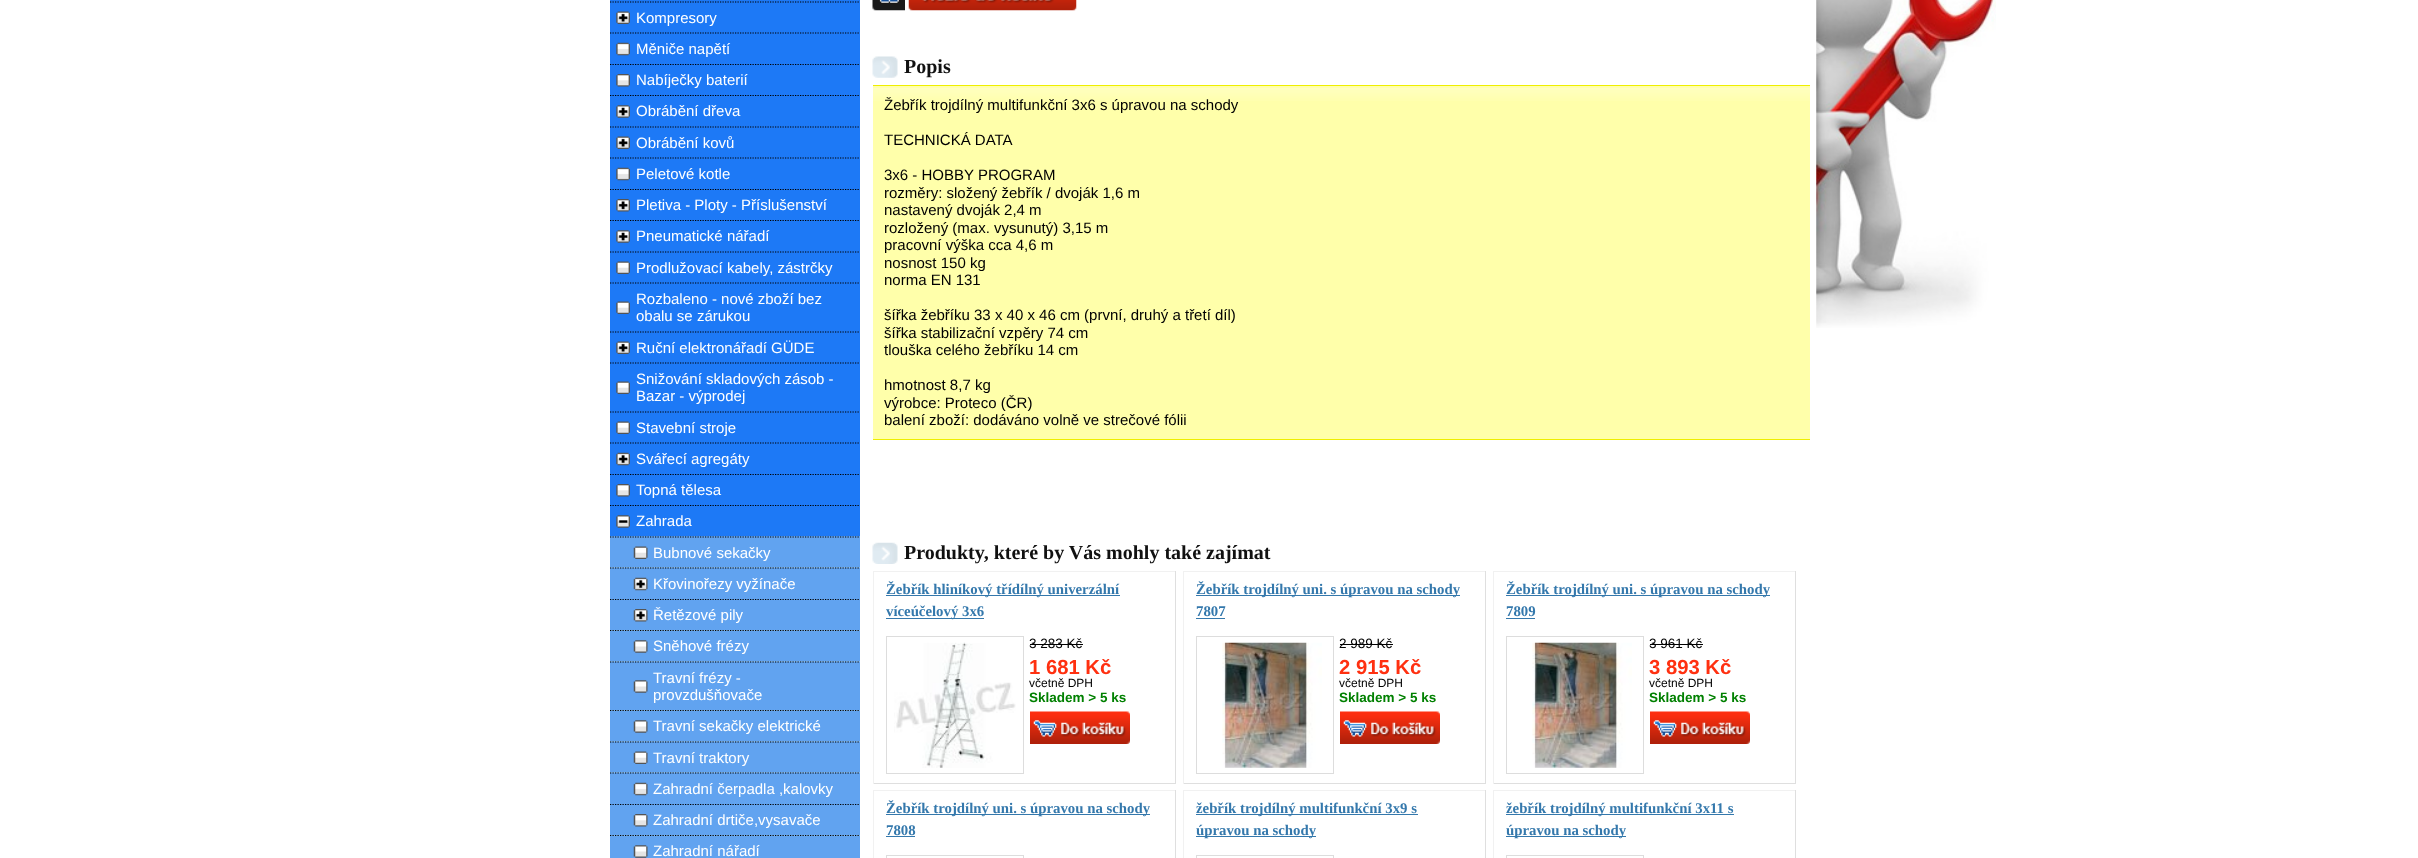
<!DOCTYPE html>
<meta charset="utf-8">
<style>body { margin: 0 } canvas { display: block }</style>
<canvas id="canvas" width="2418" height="858"></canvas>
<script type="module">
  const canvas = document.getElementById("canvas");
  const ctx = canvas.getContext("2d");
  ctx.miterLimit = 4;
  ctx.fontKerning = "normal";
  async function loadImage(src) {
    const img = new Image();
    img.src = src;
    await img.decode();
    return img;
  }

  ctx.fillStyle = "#ffffff";
  ctx.fillRect(0, 0, 2418, 858);
  ctx.fillStyle = "#1d79f6";
  ctx.fillRect(610, 0, 250, 536);
  ctx.fillStyle = "#61a3f0";
  ctx.fillRect(610, 836, 250, 22);
  ctx.fillRect(610, 773, 250, 62);
  ctx.fillRect(610, 742, 250, 30);
  ctx.fillStyle = "#83b8ed";
  ctx.fillRect(610, 772, 250, 1);
  ctx.fillStyle = "#61a3f0";
  ctx.fillRect(610, 711, 250, 30);
  ctx.fillStyle = "#83b8ed";
  ctx.fillRect(610, 741, 250, 1);
  ctx.fillStyle = "#61a3f0";
  ctx.fillRect(610, 662, 250, 48);
  ctx.fillStyle = "#83b8ed";
  ctx.fillRect(610, 710, 250, 1);
  ctx.fillStyle = "#61a3f0";
  ctx.fillRect(610, 631, 250, 30);
  ctx.fillStyle = "#83b8ed";
  ctx.fillRect(610, 661, 250, 1);
  ctx.fillStyle = "#61a3f0";
  ctx.fillRect(610, 568, 250, 62);
  ctx.beginPath();
  ctx.moveTo(610, 2);
  ctx.lineTo(860, 2);
  ctx.strokeStyle = "#000000";
  ctx.lineWidth = 1.2;
  ctx.setLineDash([1.25, 1.25]);
  ctx.stroke();
  ctx.drawImage(await loadImage("img1.png"), 616, 11, 14, 13);
  ctx.font = "15px Liberation Sans";
  ctx.fillStyle = "#ffffff";
  ctx.fillText("Kompresory", 636, 23);
  ctx.beginPath();
  ctx.moveTo(610, 33);
  ctx.lineTo(860, 33);
  ctx.stroke();
  ctx.drawImage(await loadImage("img2.png"), 616, 42, 14, 14);
  ctx.fillText("Měniče napětí", 636, 54);
  ctx.beginPath();
  ctx.moveTo(610, 64.5);
  ctx.lineTo(860, 64.5);
  ctx.stroke();
  ctx.drawImage(await loadImage("img3.png"), 616, 74, 14, 13);
  ctx.fillText("Nabíječky baterií", 636, 85);
  ctx.beginPath();
  ctx.moveTo(610, 95.5);
  ctx.lineTo(860, 95.5);
  ctx.stroke();
  ctx.drawImage(await loadImage("img4.png"), 616, 105, 14, 13);
  ctx.fillText("Obrábění dřeva", 636, 116);
  ctx.beginPath();
  ctx.moveTo(610, 127);
  ctx.lineTo(860, 127);
  ctx.stroke();
  ctx.drawImage(await loadImage("img1.png"), 616, 136, 14, 13);
  ctx.fillText("Obrábění kovů", 636, 148);
  ctx.beginPath();
  ctx.moveTo(610, 158);
  ctx.lineTo(860, 158);
  ctx.stroke();
  ctx.drawImage(await loadImage("img2.png"), 616, 167, 14, 14);
  ctx.fillText("Peletové kotle", 636, 179);
  ctx.beginPath();
  ctx.moveTo(610, 189.5);
  ctx.lineTo(860, 189.5);
  ctx.stroke();
  ctx.drawImage(await loadImage("img5.png"), 616, 199, 14, 13);
  ctx.fillText("Pletiva - Ploty - Příslušenství", 636, 210);
  ctx.beginPath();
  ctx.moveTo(610, 220.5);
  ctx.lineTo(860, 220.5);
  ctx.stroke();
  ctx.drawImage(await loadImage("img4.png"), 616, 230, 14, 13);
  ctx.fillText("Pneumatické nářadí", 636, 241);
  ctx.beginPath();
  ctx.moveTo(610, 252);
  ctx.lineTo(860, 252);
  ctx.stroke();
  ctx.drawImage(await loadImage("img6.png"), 616, 261, 14, 13);
  ctx.fillText("Prodlužovací kabely, zástrčky", 636, 273);
  ctx.beginPath();
  ctx.moveTo(610, 283);
  ctx.lineTo(860, 283);
  ctx.stroke();
  ctx.drawImage(await loadImage("img6.png"), 616, 301, 14, 13);
  ctx.fillText("Rozbaleno - nové zboží bez", 636, 304);
  ctx.fillText("obalu se zárukou", 636, 321);
  ctx.beginPath();
  ctx.moveTo(610, 332);
  ctx.lineTo(860, 332);
  ctx.stroke();
  ctx.drawImage(await loadImage("img1.png"), 616, 341, 14, 13);
  ctx.fillText("Ruční elektronářadí GÜDE", 636, 353);
  ctx.beginPath();
  ctx.moveTo(610, 363);
  ctx.lineTo(860, 363);
  ctx.stroke();
  ctx.drawImage(await loadImage("img6.png"), 616, 381, 14, 13);
  ctx.fillText("Snižování skladových zásob -", 636, 384);
  ctx.fillText("Bazar - výprodej", 636, 401);
  ctx.beginPath();
  ctx.moveTo(610, 412);
  ctx.lineTo(860, 412);
  ctx.stroke();
  ctx.drawImage(await loadImage("img6.png"), 616, 421, 14, 13);
  ctx.fillText("Stavební stroje", 636, 433);
  ctx.beginPath();
  ctx.moveTo(610, 443);
  ctx.lineTo(860, 443);
  ctx.stroke();
  ctx.drawImage(await loadImage("img7.png"), 616, 452, 14, 14);
  ctx.fillText("Svářecí agregáty", 636, 464);
  ctx.beginPath();
  ctx.moveTo(610, 474.5);
  ctx.lineTo(860, 474.5);
  ctx.stroke();
  ctx.drawImage(await loadImage("img3.png"), 616, 484, 14, 13);
  ctx.fillText("Topná tělesa", 636, 495);
  ctx.beginPath();
  ctx.moveTo(610, 505.5);
  ctx.lineTo(860, 505.5);
  ctx.stroke();
  ctx.drawImage(await loadImage("img8.png"), 616, 515, 14, 13);
  ctx.fillText("Zahrada", 636, 526);
  ctx.fillStyle = "#61a3f0";
  ctx.fillRect(610, 536, 250, 31);
  ctx.fillStyle = "#83b8ed";
  ctx.fillRect(610, 567, 250, 1);
  ctx.beginPath();
  ctx.moveTo(610, 537);
  ctx.lineTo(860, 537);
  ctx.stroke();
  ctx.drawImage(await loadImage("img9.png"), 633, 546, 15, 13);
  ctx.fillStyle = "#ffffff";
  ctx.fillText("Bubnové sekačky", 653, 558);
  ctx.beginPath();
  ctx.moveTo(610, 568);
  ctx.lineTo(860, 568);
  ctx.stroke();
  ctx.drawImage(await loadImage("img10.png"), 633, 577, 15, 14);
  ctx.fillText("Křovinořezy vyžínače", 653, 589);
  ctx.fillStyle = "#83b8ed";
  ctx.fillRect(610, 630, 250, 1);
  ctx.beginPath();
  ctx.moveTo(610, 599.5);
  ctx.lineTo(860, 599.5);
  ctx.stroke();
  ctx.drawImage(await loadImage("img11.png"), 633, 609, 15, 13);
  ctx.fillStyle = "#ffffff";
  ctx.fillText("Řetězové pily", 653, 620);
  ctx.beginPath();
  ctx.moveTo(610, 630.5);
  ctx.lineTo(860, 630.5);
  ctx.stroke();
  ctx.drawImage(await loadImage("img12.png"), 633, 640, 15, 13);
  ctx.fillText("Sněhové frézy", 653, 651);
  ctx.beginPath();
  ctx.moveTo(610, 662);
  ctx.lineTo(860, 662);
  ctx.stroke();
  ctx.drawImage(await loadImage("img12.png"), 633, 680, 15, 13);
  ctx.fillText("Travní frézy -", 653, 683);
  ctx.fillText("provzdušňovače", 653, 700);
  ctx.beginPath();
  ctx.moveTo(610, 710.5);
  ctx.lineTo(860, 710.5);
  ctx.stroke();
  ctx.drawImage(await loadImage("img12.png"), 633, 720, 15, 13);
  ctx.fillText("Travní sekačky elektrické", 653, 731);
  ctx.beginPath();
  ctx.moveTo(610, 742);
  ctx.lineTo(860, 742);
  ctx.stroke();
  ctx.drawImage(await loadImage("img13.png"), 633, 751, 15, 13);
  ctx.fillText("Travní traktory", 653, 763);
  ctx.beginPath();
  ctx.moveTo(610, 773);
  ctx.lineTo(860, 773);
  ctx.stroke();
  ctx.drawImage(await loadImage("img14.png"), 633, 782, 15, 14);
  ctx.fillText("Zahradní čerpadla ,kalovky", 653, 794);
  ctx.fillStyle = "#83b8ed";
  ctx.fillRect(610, 835, 250, 1);
  ctx.beginPath();
  ctx.moveTo(610, 804.5);
  ctx.lineTo(860, 804.5);
  ctx.stroke();
  ctx.drawImage(await loadImage("img15.png"), 633, 814, 15, 13);
  ctx.fillStyle = "#ffffff";
  ctx.fillText("Zahradní drtiče,vysavače", 653, 825);
  ctx.beginPath();
  ctx.moveTo(610, 835.5);
  ctx.lineTo(860, 835.5);
  ctx.stroke();
  ctx.drawImage(await loadImage("img12.png"), 633, 845, 15, 13);
  ctx.fillText("Zahradní nářadí", 653, 856);
  ctx.drawImage(await loadImage("img16.png"), 872, 0, 33, 11);
  ctx.drawImage(await loadImage("img17.png"), 908, 0, 169, 11);
  ctx.drawImage(await loadImage("img18.png"), 872, 56, 26, 22);
  ctx.font = "bold 20px Liberation Serif";
  ctx.fillStyle = "#111111";
  ctx.fillText("Popis", 904, 73);
  ctx.fillStyle = "#ffffaa";
  ctx.fillRect(873, 86, 937, 353);
  ctx.drawImage(await loadImage("img19.png"), 873, 87, 937, 14);
  ctx.fillStyle = "#eeee00";
  ctx.fillRect(873, 85, 937, 1);
  ctx.fillRect(873, 439, 937, 1);
  ctx.font = "15px Liberation Sans";
  ctx.fillStyle = "#000000";
  ctx.fillText("Žebřík trojdílný multifunkční 3x6 s úpravou na schody", 884, 110);
  ctx.fillText("TECHNICKÁ DATA", 884, 145);
  ctx.fillText("3x6 - HOBBY PROGRAM", 884, 180);
  ctx.fillText("rozměry: složený žebřík / dvoják 1,6 m", 884, 198);
  ctx.fillText("nastavený dvoják 2,4 m", 884, 215);
  ctx.fillText("rozložený (max. vysunutý) 3,15 m", 884, 233);
  ctx.fillText("pracovní výška cca 4,6 m", 884, 250);
  ctx.fillText("nosnost 150 kg", 884, 268);
  ctx.fillText("norma EN 131", 884, 285);
  ctx.fillText("šířka žebříku 33 x 40 x 46 cm (první, druhý a třetí díl)", 884, 320);
  ctx.fillText("šířka stabilizační vzpěry 74 cm", 884, 338);
  ctx.fillText("tlouška celého žebříku 14 cm", 884, 355);
  ctx.fillText("hmotnost 8,7 kg", 884, 390);
  ctx.fillText("výrobce: Proteco (ČR)", 884, 408);
  ctx.fillText("balení zboží: dodáváno volně ve strečové fólii", 884, 425);
  ctx.drawImage(await loadImage("img20.png"), 872, 542, 26, 22);
  ctx.font = "bold 20px Liberation Serif";
  ctx.fillStyle = "#111111";
  ctx.fillText("Produkty, které by Vás mohly také zajímat", 904, 559);
  ctx.fillStyle = "#f1f1f1";
  ctx.fillRect(873, 571, 303, 1);
  ctx.fillStyle = "#dfdfdf";
  ctx.fillRect(1175, 571, 1, 213);
  ctx.fillRect(873, 783, 303, 1);
  ctx.fillStyle = "#f1f1f1";
  ctx.fillRect(873, 571, 1, 213);
  ctx.fillStyle = "#3478ac";
  ctx.fillRect(886, 595, 234, 1);
  ctx.font = "bold 14.8px Liberation Serif";
  ctx.fillText("Žebřík hliníkový třídílný univerzální", 886, 594);
  ctx.fillRect(886, 618, 98, 1);
  ctx.fillText("víceúčelový 3x6", 886, 616);
  ctx.strokeStyle = "#dddddd";
  ctx.lineWidth = 1;
  ctx.setLineDash([]);
  ctx.strokeRect(886.5, 636.5, 137, 137);
  ctx.drawImage(await loadImage("img21.png"), 894, 642, 122, 126);
  ctx.font = "13.5px Liberation Sans";
  ctx.fillStyle = "#000000";
  ctx.fillText("3 283 Kč", 1029, 648);
  ctx.fillRect(1030, 644, 53, 1);
  ctx.font = "bold 20.25px Liberation Sans";
  ctx.fillStyle = "#ff3010";
  ctx.fillText("1 681 Kč", 1029, 674);
  ctx.font = "12px Liberation Sans";
  ctx.fillStyle = "#000000";
  ctx.fillText("včetně DPH", 1029, 687);
  ctx.font = "bold 13.5px Liberation Sans";
  ctx.fillStyle = "#008000";
  ctx.fillText("Skladem > 5 ks", 1029, 702);
  ctx.drawImage(await loadImage("img22.png"), 1030, 711, 100, 33);
  ctx.fillStyle = "#f1f1f1";
  ctx.fillRect(1183, 571, 303, 1);
  ctx.fillStyle = "#dfdfdf";
  ctx.fillRect(1485, 571, 1, 213);
  ctx.fillRect(1183, 783, 303, 1);
  ctx.fillStyle = "#f1f1f1";
  ctx.fillRect(1183, 571, 1, 213);
  ctx.fillStyle = "#3478ac";
  ctx.fillRect(1196, 595, 264, 1);
  ctx.font = "bold 14.8px Liberation Serif";
  ctx.fillText("Žebřík trojdílný uni. s úpravou na schody", 1196, 594);
  ctx.fillText("7807", 1196, 616);
  ctx.fillRect(1196, 618, 29, 1);
  ctx.strokeRect(1196.5, 636.5, 137, 137);
  ctx.drawImage(await loadImage("img23.png"), 1222, 642, 100, 126);
  ctx.font = "13.5px Liberation Sans";
  ctx.fillStyle = "#000000";
  ctx.fillText("2 989 Kč", 1339, 648);
  ctx.fillRect(1340, 644, 53, 1);
  ctx.font = "bold 20.25px Liberation Sans";
  ctx.fillStyle = "#ff3010";
  ctx.fillText("2 915 Kč", 1339, 674);
  ctx.font = "12px Liberation Sans";
  ctx.fillStyle = "#000000";
  ctx.fillText("včetně DPH", 1339, 687);
  ctx.font = "bold 13.5px Liberation Sans";
  ctx.fillStyle = "#008000";
  ctx.fillText("Skladem > 5 ks", 1339, 702);
  ctx.drawImage(await loadImage("img22.png"), 1340, 711, 100, 33);
  ctx.fillStyle = "#f1f1f1";
  ctx.fillRect(1493, 571, 303, 1);
  ctx.fillStyle = "#dfdfdf";
  ctx.fillRect(1795, 571, 1, 213);
  ctx.fillRect(1493, 783, 303, 1);
  ctx.fillStyle = "#f1f1f1";
  ctx.fillRect(1493, 571, 1, 213);
  ctx.fillStyle = "#3478ac";
  ctx.fillRect(1506, 595, 264, 1);
  ctx.font = "bold 14.8px Liberation Serif";
  ctx.fillText("Žebřík trojdílný uni. s úpravou na schody", 1506, 594);
  ctx.fillText("7809", 1506, 616);
  ctx.fillRect(1506, 618, 29, 1);
  ctx.strokeRect(1506.5, 636.5, 137, 137);
  ctx.drawImage(await loadImage("img24.png"), 1532, 642, 100, 126);
  ctx.font = "13.5px Liberation Sans";
  ctx.fillStyle = "#000000";
  ctx.fillText("3 961 Kč", 1649, 648);
  ctx.fillRect(1650, 644, 53, 1);
  ctx.font = "bold 20.25px Liberation Sans";
  ctx.fillStyle = "#ff3010";
  ctx.fillText("3 893 Kč", 1649, 674);
  ctx.font = "12px Liberation Sans";
  ctx.fillStyle = "#000000";
  ctx.fillText("včetně DPH", 1649, 687);
  ctx.font = "bold 13.5px Liberation Sans";
  ctx.fillStyle = "#008000";
  ctx.fillText("Skladem > 5 ks", 1649, 702);
  ctx.drawImage(await loadImage("img22.png"), 1650, 711, 100, 33);
  ctx.fillStyle = "#f1f1f1";
  ctx.fillRect(873, 790, 303, 1);
  ctx.fillStyle = "#dfdfdf";
  ctx.fillRect(1175, 790, 1, 68);
  ctx.fillStyle = "#f1f1f1";
  ctx.fillRect(873, 790, 1, 68);
  ctx.fillStyle = "#3478ac";
  ctx.fillRect(886, 814, 264, 1);
  ctx.font = "bold 14.8px Liberation Serif";
  ctx.fillText("Žebřík trojdílný uni. s úpravou na schody", 886, 813);
  ctx.fillText("7808", 886, 835);
  ctx.fillRect(886, 836, 29, 1);
  ctx.strokeRect(886.5, 855.5, 137, 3);
  ctx.fillStyle = "#f1f1f1";
  ctx.fillRect(1183, 790, 303, 1);
  ctx.fillStyle = "#dfdfdf";
  ctx.fillRect(1485, 790, 1, 68);
  ctx.fillStyle = "#f1f1f1";
  ctx.fillRect(1183, 790, 1, 68);
  ctx.fillStyle = "#3478ac";
  ctx.fillRect(1196, 814, 222, 1);
  ctx.fillText("žebřík trojdílný multifunkční 3x9 s", 1196, 813);
  ctx.fillRect(1196, 836, 120, 1);
  ctx.fillText("úpravou na schody", 1196, 835);
  ctx.strokeRect(1196.5, 855.5, 137, 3);
  ctx.fillStyle = "#f1f1f1";
  ctx.fillRect(1493, 790, 303, 1);
  ctx.fillStyle = "#dfdfdf";
  ctx.fillRect(1795, 790, 1, 68);
  ctx.fillStyle = "#f1f1f1";
  ctx.fillRect(1493, 790, 1, 68);
  ctx.fillStyle = "#3478ac";
  ctx.fillRect(1506, 814, 228, 1);
  ctx.fillText("žebřík trojdílný multifunkční 3x11 s", 1506, 813);
  ctx.fillRect(1506, 836, 120, 1);
  ctx.fillText("úpravou na schody", 1506, 835);
  ctx.strokeRect(1506.5, 855.5, 137, 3);
  ctx.drawImage(await loadImage("img25.png"), 1816, 0, 180, 328);
</script>
